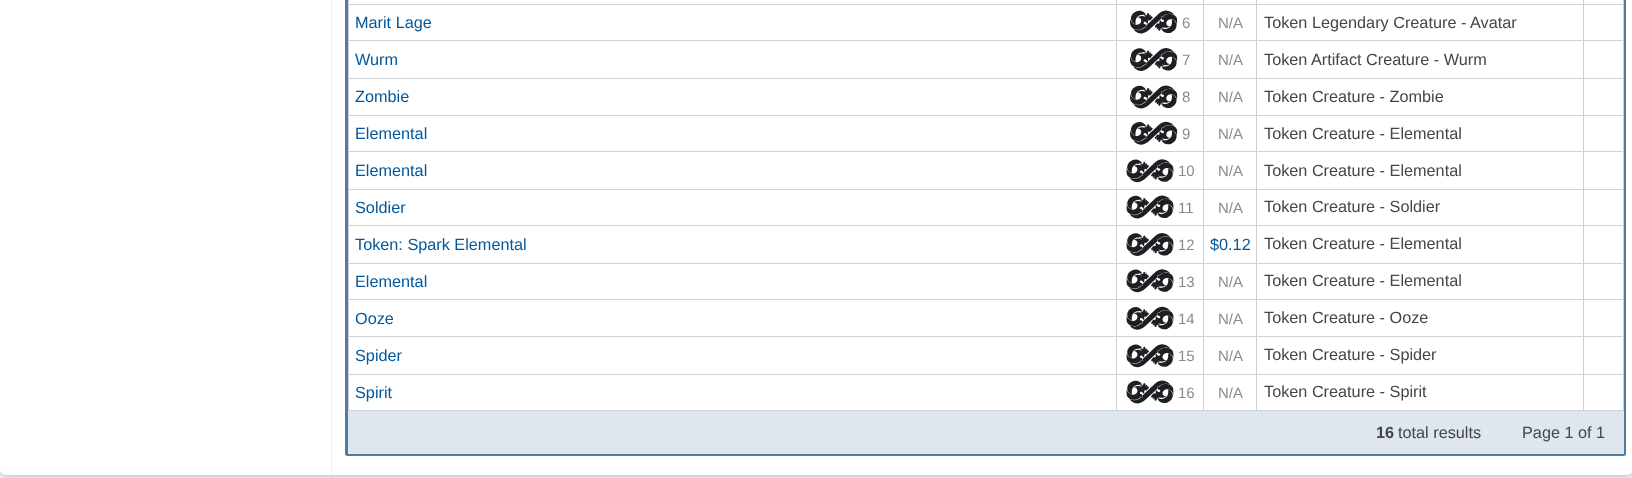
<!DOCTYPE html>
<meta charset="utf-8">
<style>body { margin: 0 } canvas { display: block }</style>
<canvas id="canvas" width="1632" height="478"></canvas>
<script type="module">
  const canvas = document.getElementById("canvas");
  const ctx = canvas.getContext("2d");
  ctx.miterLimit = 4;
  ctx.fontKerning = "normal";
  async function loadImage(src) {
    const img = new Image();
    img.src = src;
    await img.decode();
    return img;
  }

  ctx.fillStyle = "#f0f1f2";
  ctx.fillRect(0, 0, 1632, 478);
  ctx.fillStyle = "#bbbbbb";
  ctx.filter = "blur(3px)";
  ctx.beginPath();
  ctx.roundRect(0, -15, 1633, 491, 6);
  ctx.fill();
  ctx.filter = "none";
  ctx.fillStyle = "#ffffff";
  ctx.beginPath();
  ctx.moveTo(0, -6);
  ctx.lineTo(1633, -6);
  ctx.lineTo(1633, 469);
  ctx.bezierCurveTo(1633, 472.5, 1630.5, 475, 1627, 475);
  ctx.lineTo(6, 475);
  ctx.bezierCurveTo(2.5, 475, 0, 472.5, 0, 469);
  ctx.closePath();
  ctx.fill();
  ctx.fillStyle = "#f0f1f2";
  ctx.fillRect(331, 0, 1, 475);
  ctx.beginPath();
  ctx.roundRect(346.5, -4.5, 1278, 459, 1);
  ctx.strokeStyle = "#517ca1";
  ctx.lineWidth = 3;
  ctx.stroke();
  ctx.fillStyle = "#ced0d6";
  ctx.fillRect(1583, 4, 41, 1);
  ctx.fillRect(1583, 40, 41, 1);
  ctx.fillRect(1583, 78, 41, 1);
  ctx.fillRect(1583, 115, 41, 1);
  ctx.fillRect(1583, 151, 41, 1);
  ctx.fillRect(1583, 189, 41, 1);
  ctx.fillRect(1583, 225, 41, 1);
  ctx.fillRect(1583, 263, 41, 1);
  ctx.fillRect(1583, 299, 41, 1);
  ctx.fillRect(1583, 336, 41, 1);
  ctx.fillRect(1583, 374, 41, 1);
  ctx.fillRect(1623, 374, 1, 37);
  ctx.fillRect(1583, 410, 41, 1);
  ctx.fillRect(1583, 374, 1, 37);
  ctx.fillRect(1256, 374, 328, 1);
  ctx.fillRect(1583, 336, 1, 39);
  ctx.fillRect(1256, 336, 328, 1);
  ctx.fillRect(1583, 299, 1, 39);
  ctx.fillRect(1256, 299, 328, 1);
  ctx.fillRect(1583, 263, 1, 37);
  ctx.fillRect(1256, 263, 328, 1);
  ctx.fillRect(1583, 225, 1, 39);
  ctx.fillRect(1256, 225, 328, 1);
  ctx.fillRect(1583, 189, 1, 37);
  ctx.fillRect(1256, 189, 328, 1);
  ctx.fillRect(1583, 151, 1, 39);
  ctx.fillRect(1256, 151, 328, 1);
  ctx.fillRect(1583, 115, 1, 38);
  ctx.fillRect(1256, 115, 328, 1);
  ctx.fillRect(1583, 78, 1, 38);
  ctx.fillRect(1256, 78, 328, 1);
  ctx.fillRect(1583, 40, 1, 39);
  ctx.fillRect(1256, 40, 328, 1);
  ctx.fillRect(1583, 4, 1, 37);
  ctx.fillRect(1256, 4, 328, 1);
  ctx.fillRect(1256, 410, 328, 1);
  ctx.fillRect(1256, 374, 1, 37);
  ctx.fillRect(1203, 374, 55, 1);
  ctx.fillRect(1256, 336, 1, 39);
  ctx.fillRect(1203, 336, 55, 1);
  ctx.fillRect(1256, 299, 1, 39);
  ctx.fillRect(1203, 299, 55, 1);
  ctx.fillRect(1256, 263, 1, 37);
  ctx.fillRect(1203, 263, 55, 1);
  ctx.fillRect(1256, 225, 1, 39);
  ctx.fillRect(1203, 225, 55, 1);
  ctx.fillRect(1256, 189, 1, 37);
  ctx.fillRect(1203, 189, 55, 1);
  ctx.fillRect(1256, 151, 1, 39);
  ctx.fillRect(1203, 151, 55, 1);
  ctx.fillRect(1256, 115, 1, 38);
  ctx.fillRect(1203, 115, 55, 1);
  ctx.fillRect(1256, 78, 1, 38);
  ctx.fillRect(1203, 78, 55, 1);
  ctx.fillRect(1256, 40, 1, 39);
  ctx.fillRect(1203, 40, 55, 1);
  ctx.fillRect(1256, 4, 1, 37);
  ctx.fillRect(1203, 4, 55, 1);
  ctx.fillRect(1203, 410, 55, 1);
  ctx.fillRect(1203, 374, 1, 37);
  ctx.fillRect(1116, 374, 88, 1);
  ctx.fillRect(1203, 336, 1, 39);
  ctx.fillRect(1116, 336, 88, 1);
  ctx.fillRect(1203, 299, 1, 39);
  ctx.fillRect(1116, 299, 88, 1);
  ctx.fillRect(1203, 263, 1, 37);
  ctx.fillRect(1116, 263, 88, 1);
  ctx.fillRect(1203, 225, 1, 39);
  ctx.fillRect(1116, 225, 88, 1);
  ctx.fillRect(1203, 189, 1, 37);
  ctx.fillRect(1116, 189, 88, 1);
  ctx.fillRect(1203, 151, 1, 39);
  ctx.fillRect(1116, 151, 88, 1);
  ctx.fillRect(1203, 115, 1, 38);
  ctx.fillRect(1116, 115, 88, 1);
  ctx.fillRect(1203, 78, 1, 38);
  ctx.fillRect(1116, 78, 88, 1);
  ctx.fillRect(1203, 40, 1, 39);
  ctx.fillRect(1116, 40, 88, 1);
  ctx.fillRect(1203, 4, 1, 37);
  ctx.fillRect(1116, 4, 88, 1);
  ctx.fillRect(1116, 410, 88, 1);
  ctx.fillRect(1116, 374, 1, 37);
  ctx.fillRect(348, 374, 770, 1);
  ctx.fillRect(1116, 336, 1, 39);
  ctx.fillRect(348, 336, 770, 1);
  ctx.fillRect(1116, 299, 1, 39);
  ctx.fillRect(348, 299, 770, 1);
  ctx.fillRect(1116, 263, 1, 37);
  ctx.fillRect(348, 263, 770, 1);
  ctx.fillRect(1116, 225, 1, 39);
  ctx.fillRect(348, 225, 770, 1);
  ctx.fillRect(1116, 189, 1, 37);
  ctx.fillRect(348, 189, 770, 1);
  ctx.fillRect(1116, 151, 1, 39);
  ctx.fillRect(348, 151, 770, 1);
  ctx.fillRect(1116, 115, 1, 38);
  ctx.fillRect(348, 115, 770, 1);
  ctx.fillRect(1116, 78, 1, 38);
  ctx.fillRect(348, 78, 770, 1);
  ctx.fillRect(1116, 40, 1, 39);
  ctx.fillRect(348, 40, 770, 1);
  ctx.fillRect(1116, 4, 1, 37);
  ctx.fillRect(348, 4, 770, 1);
  ctx.fillRect(1116, 0, 1, 5);
  ctx.fillRect(1203, 0, 1, 5);
  ctx.fillRect(1256, 0, 1, 5);
  ctx.fillRect(1583, 0, 1, 5);
  ctx.fillRect(348, 410, 770, 1);
  ctx.fillRect(348, 374, 1, 37);
  ctx.fillRect(348, 336, 1, 39);
  ctx.fillRect(348, 299, 1, 39);
  ctx.fillRect(348, 263, 1, 37);
  ctx.fillRect(348, 225, 1, 39);
  ctx.fillRect(348, 189, 1, 37);
  ctx.fillRect(348, 151, 1, 39);
  ctx.fillRect(348, 115, 1, 38);
  ctx.fillRect(348, 78, 1, 38);
  ctx.fillRect(348, 40, 1, 39);
  ctx.fillRect(348, 0, 1, 41);
  ctx.font = "16.25px Liberation Sans";
  ctx.fillStyle = "#00579c";
  ctx.fillText("Marit Lage", 355, 28);
  ctx.drawImage(await loadImage("img1.png"), 1130, 10, 48, 24);
  ctx.font = "15px Liberation Sans";
  ctx.fillStyle = "#868a91";
  ctx.fillText("6", 1182, 28);
  ctx.fillText("N/A", 1218, 28);
  ctx.font = "16.25px Liberation Sans";
  ctx.fillStyle = "#43454a";
  ctx.fillText("Token Legendary Creature - Avatar", 1264, 28);
  ctx.fillStyle = "#ced0d6";
  ctx.fillRect(1623, 336, 1, 39);
  ctx.fillRect(1623, 299, 1, 39);
  ctx.fillRect(1623, 263, 1, 37);
  ctx.fillRect(1623, 225, 1, 39);
  ctx.fillRect(1623, 189, 1, 37);
  ctx.fillRect(1623, 151, 1, 39);
  ctx.fillRect(1623, 115, 1, 38);
  ctx.fillRect(1623, 78, 1, 38);
  ctx.fillRect(1623, 40, 1, 39);
  ctx.fillRect(1623, 0, 1, 41);
  ctx.fillStyle = "#00579c";
  ctx.fillText("Wurm", 355, 65);
  ctx.drawImage(await loadImage("img2.png"), 1130, 48, 48, 23);
  ctx.font = "15px Liberation Sans";
  ctx.fillStyle = "#868a91";
  ctx.fillText("7", 1182, 65);
  ctx.fillText("N/A", 1218, 65);
  ctx.font = "16.25px Liberation Sans";
  ctx.fillStyle = "#43454a";
  ctx.fillText("Token Artifact Creature - Wurm", 1264, 65);
  ctx.fillStyle = "#00579c";
  ctx.fillText("Zombie", 355, 102);
  ctx.drawImage(await loadImage("img1.png"), 1130, 85, 48, 24);
  ctx.font = "15px Liberation Sans";
  ctx.fillStyle = "#868a91";
  ctx.fillText("8", 1182, 102);
  ctx.fillText("N/A", 1218, 102);
  ctx.font = "16.25px Liberation Sans";
  ctx.fillStyle = "#43454a";
  ctx.fillText("Token Creature - Zombie", 1264, 102);
  ctx.fillStyle = "#00579c";
  ctx.fillText("Elemental", 355, 139);
  ctx.drawImage(await loadImage("img3.png"), 1130, 121, 48, 24);
  ctx.font = "15px Liberation Sans";
  ctx.fillStyle = "#868a91";
  ctx.fillText("9", 1182, 139);
  ctx.fillText("N/A", 1218, 139);
  ctx.font = "16.25px Liberation Sans";
  ctx.fillStyle = "#43454a";
  ctx.fillText("Token Creature - Elemental", 1264, 139);
  ctx.fillStyle = "#00579c";
  ctx.fillText("Elemental", 355, 176);
  ctx.drawImage(await loadImage("img4.png"), 1126, 159, 48, 24);
  ctx.font = "15px Liberation Sans";
  ctx.fillStyle = "#868a91";
  ctx.fillText("10", 1178, 176);
  ctx.fillText("N/A", 1218, 176);
  ctx.font = "16.25px Liberation Sans";
  ctx.fillStyle = "#43454a";
  ctx.fillText("Token Creature - Elemental", 1264, 176);
  ctx.fillStyle = "#00579c";
  ctx.fillText("Soldier", 355, 213);
  ctx.drawImage(await loadImage("img5.png"), 1126, 195, 48, 24);
  ctx.font = "15px Liberation Sans";
  ctx.fillStyle = "#868a91";
  ctx.fillText("11", 1178, 213);
  ctx.fillText("N/A", 1218, 213);
  ctx.font = "16.25px Liberation Sans";
  ctx.fillStyle = "#43454a";
  ctx.fillText("Token Creature - Soldier", 1264, 212);
  ctx.fillStyle = "#00579c";
  ctx.fillText("Token: Spark Elemental", 355, 250);
  ctx.drawImage(await loadImage("img6.png"), 1126, 233, 48, 23);
  ctx.font = "15px Liberation Sans";
  ctx.fillStyle = "#868a91";
  ctx.fillText("12", 1178, 250);
  ctx.font = "16.25px Liberation Sans";
  ctx.fillStyle = "#00579c";
  ctx.fillText("$0.12", 1210, 250);
  ctx.fillStyle = "#43454a";
  ctx.fillText("Token Creature - Elemental", 1264, 249);
  ctx.fillStyle = "#00579c";
  ctx.fillText("Elemental", 355, 287);
  ctx.drawImage(await loadImage("img4.png"), 1126, 269, 48, 24);
  ctx.font = "15px Liberation Sans";
  ctx.fillStyle = "#868a91";
  ctx.fillText("13", 1178, 287);
  ctx.fillText("N/A", 1218, 287);
  ctx.font = "16.25px Liberation Sans";
  ctx.fillStyle = "#43454a";
  ctx.fillText("Token Creature - Elemental", 1264, 286);
  ctx.fillStyle = "#00579c";
  ctx.fillText("Ooze", 355, 324);
  ctx.drawImage(await loadImage("img7.png"), 1126, 306, 48, 24);
  ctx.font = "15px Liberation Sans";
  ctx.fillStyle = "#868a91";
  ctx.fillText("14", 1178, 324);
  ctx.fillText("N/A", 1218, 324);
  ctx.font = "16.25px Liberation Sans";
  ctx.fillStyle = "#43454a";
  ctx.fillText("Token Creature - Ooze", 1264, 323);
  ctx.fillStyle = "#00579c";
  ctx.fillText("Spider", 355, 361);
  ctx.drawImage(await loadImage("img4.png"), 1126, 344, 48, 24);
  ctx.font = "15px Liberation Sans";
  ctx.fillStyle = "#868a91";
  ctx.fillText("15", 1178, 361);
  ctx.fillText("N/A", 1218, 361);
  ctx.font = "16.25px Liberation Sans";
  ctx.fillStyle = "#43454a";
  ctx.fillText("Token Creature - Spider", 1264, 360);
  ctx.fillStyle = "#00579c";
  ctx.fillText("Spirit", 355, 398);
  ctx.drawImage(await loadImage("img5.png"), 1126, 380, 48, 24);
  ctx.font = "15px Liberation Sans";
  ctx.fillStyle = "#868a91";
  ctx.fillText("16", 1178, 398);
  ctx.fillText("N/A", 1218, 398);
  ctx.font = "16.25px Liberation Sans";
  ctx.fillStyle = "#43454a";
  ctx.fillText("Token Creature - Spirit", 1264, 397);
  ctx.fillStyle = "#dfe6ed";
  ctx.fillRect(348, 411, 1276, 43);
  ctx.font = "bold 16.25px Liberation Sans";
  ctx.fillStyle = "#43454a";
  ctx.fillText("16", 1376, 438);
  ctx.font = "16.25px Liberation Sans";
  ctx.fillText("total results", 1398, 438);
  ctx.fillText("Page 1 of 1", 1522, 438);
</script>
